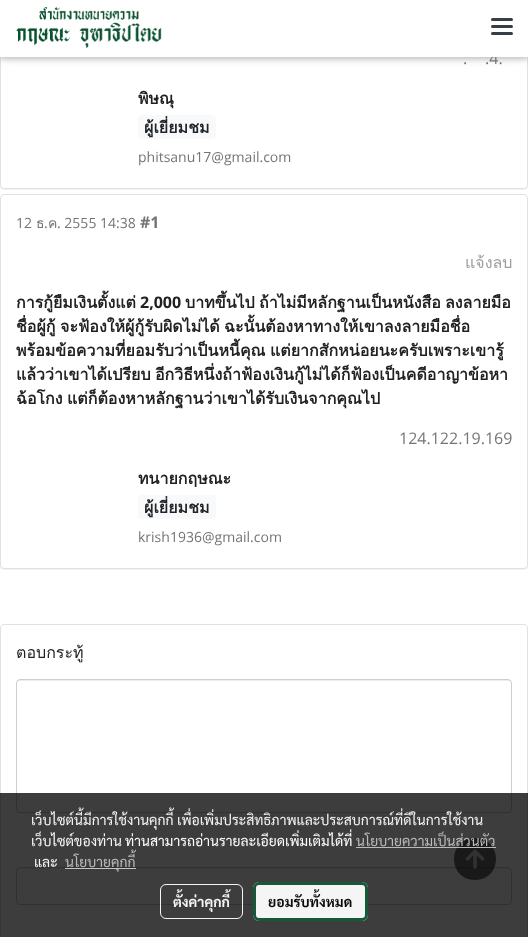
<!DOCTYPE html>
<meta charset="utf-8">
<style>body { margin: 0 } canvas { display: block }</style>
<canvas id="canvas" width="528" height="937"></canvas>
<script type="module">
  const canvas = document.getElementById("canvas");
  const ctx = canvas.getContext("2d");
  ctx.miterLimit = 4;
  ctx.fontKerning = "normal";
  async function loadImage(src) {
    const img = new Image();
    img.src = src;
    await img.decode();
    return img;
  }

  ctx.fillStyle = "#ffffff";
  ctx.fillRect(0, 0, 528, 937);
  ctx.fillStyle = "rgba(0, 0, 0, 0.05)";
  ctx.filter = "blur(0.5px)";
  ctx.beginPath();
  ctx.roundRect(0, -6, 528, 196, 4);
  ctx.fill();
  ctx.filter = "none";
  ctx.fillStyle = "#ffffff";
  ctx.beginPath();
  ctx.roundRect(0.5, -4.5, 527, 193, 3.5);
  ctx.fill();
  ctx.strokeStyle = "#dee2e6";
  ctx.stroke();
  ctx.fillStyle = "rgba(0, 0, 0, 0.12)";
  ctx.filter = "blur(5px)";
  ctx.beginPath();
  ctx.rect(0, 2, 528, 57);
  ctx.fill();
  ctx.filter = "none";
  ctx.fillStyle = "rgba(0, 0, 0, 0.16)";
  ctx.filter = "blur(2.5px)";
  ctx.beginPath();
  ctx.rect(0, 2, 528, 57);
  ctx.fill();
  ctx.filter = "none";
  ctx.font = "16px Open Sans";
  ctx.fillStyle = "#757575";
  ctx.fillText(".4.", 485, 64);
  ctx.fillStyle = "#ffffff";
  ctx.fillRect(0, 0, 528, 57);
  ctx.drawImage(await loadImage("img1.png"), 16, 6, 146, 42);
  ctx.fillStyle = "#373e44";
  ctx.beginPath();
  ctx.roundRect(491, 25, 22, 3, 1.5);
  ctx.fill();
  ctx.beginPath();
  ctx.roundRect(491, 18, 22, 3, 1.5);
  ctx.fill();
  ctx.beginPath();
  ctx.roundRect(491, 32, 22, 3, 1.5);
  ctx.fill();
  ctx.fillStyle = "#757575";
  ctx.fillText(".", 463, 64);
  ctx.font = "bold 16px Loma";
  ctx.fillStyle = "#212121";
  ctx.fillText("พิษณุ", 138, 104);
  ctx.fillStyle = "#f8f9fa";
  ctx.beginPath();
  ctx.roundRect(138, 115, 78, 24, 4);
  ctx.fill();
  ctx.fillStyle = "#212529";
  ctx.fillText("ผู้เยี่ยมชม", 144, 133);
  ctx.font = "14px Open Sans";
  ctx.fillStyle = "#757575";
  ctx.fillText("phitsanu17@gmail.com", 138, 162);
  ctx.fillStyle = "rgba(0, 0, 0, 0.05)";
  ctx.filter = "blur(0.5px)";
  ctx.beginPath();
  ctx.roundRect(0, 195, 528, 375, 4);
  ctx.fill();
  ctx.filter = "none";
  ctx.fillStyle = "#ffffff";
  ctx.beginPath();
  ctx.roundRect(0.5, 194.5, 527, 374, 3.5);
  ctx.fill();
  ctx.stroke();
  ctx.fillStyle = "#757575";
  ctx.fillText("12", 16, 228);
  ctx.font = "14px Loma";
  ctx.fillText("ธ", 36, 228);
  ctx.font = "14px Open Sans";
  ctx.fillText(".", 44, 228);
  ctx.font = "14px Loma";
  ctx.fillText("ค", 48, 228);
  ctx.font = "14px Open Sans";
  ctx.fillText(". 2555 14:38", 57, 228);
  ctx.font = "bold 16px Open Sans";
  ctx.fillText("#1", 140, 228);
  ctx.font = "16px Loma";
  ctx.fillStyle = "#9e9e9e";
  ctx.fillText("แจ้งลบ", 465, 268);
  ctx.font = "bold 16px Loma";
  ctx.fillStyle = "#212121";
  ctx.fillText("การกู้ยืมเงินตั้งแต่", 16, 308);
  ctx.font = "bold 16px Open Sans";
  ctx.fillText("2,000", 140, 308);
  ctx.font = "bold 16px Loma";
  ctx.fillText("บาทขึ้นไป", 185, 308);
  ctx.fillText("ถ้าไม่มีหลักฐานเป็นหนังสือ", 259, 308);
  ctx.fillText("ลงลายมือ", 445, 308);
  ctx.fillText("ชื่อผู้กู้", 16, 332);
  ctx.fillText("จะฟ้องให้ผู้กู้รับผิดไม่ได้", 60, 332);
  ctx.fillText("ฉะนั้นต้องหาทางให้เขาลงลายมือชื่อ", 224, 332);
  ctx.fillText("พร้อมข้อความที่ยอมรับว่าเป็นหนี้คุณ", 16, 356);
  ctx.fillText("แต่ยากสักหน่อยนะครับเพราะเขารู้", 270, 356);
  ctx.fillText("แล้วว่าเขาได้เปรียบ", 16, 380);
  ctx.fillText("อีกวิธีหนึ่งถ้าฟ้องเงินกู้ไม่ได้ก็ฟ้องเป็นคดีอาญาข้อหา", 155, 380);
  ctx.fillText("ฉ้อโกง", 16, 404);
  ctx.fillText("แต่ก็ต้องหาหลักฐานว่าเขาได้รับเงินจากคุณไป", 67, 404);
  ctx.font = "16px Open Sans";
  ctx.fillStyle = "#757575";
  ctx.fillText("124.122.19.169", 399, 444);
  ctx.font = "bold 16px Loma";
  ctx.fillStyle = "#212121";
  ctx.fillText("ทนายกฤษณะ", 138, 484);
  ctx.fillStyle = "#f8f9fa";
  ctx.beginPath();
  ctx.roundRect(138, 495, 78, 24, 4);
  ctx.fill();
  ctx.fillStyle = "#212529";
  ctx.fillText("ผู้เยี่ยมชม", 144, 513);
  ctx.font = "14px Open Sans";
  ctx.fillStyle = "#757575";
  ctx.fillText("krish1936@gmail.com", 138, 542);
  ctx.beginPath();
  ctx.roundRect(0.5, 624.5, 527, 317, 3.5);
  ctx.stroke();
  ctx.font = "16px Loma";
  ctx.fillStyle = "#212121";
  ctx.fillText("ตอบกระทู้", 16, 658);
  ctx.fillStyle = "#ececec";
  ctx.beginPath();
  ctx.moveTo(20, 681);
  ctx.lineTo(508, 681);
  ctx.bezierCurveTo(510, 681, 511, 682, 511, 684);
  ctx.bezierCurveTo(511, 682, 510, 680, 508, 680);
  ctx.lineTo(20, 680);
  ctx.bezierCurveTo(18, 680, 17, 682, 17, 684);
  ctx.bezierCurveTo(17, 682, 18, 681, 20, 681);
  ctx.closePath();
  ctx.fill();
  ctx.beginPath();
  ctx.roundRect(16.5, 679.5, 495, 133, 3.5);
  ctx.strokeStyle = "#cdced2";
  ctx.stroke();
  ctx.beginPath();
  ctx.moveTo(20, 869);
  ctx.lineTo(508, 869);
  ctx.bezierCurveTo(510, 869, 511, 870, 511, 872);
  ctx.bezierCurveTo(511, 870, 510, 868, 508, 868);
  ctx.lineTo(20, 868);
  ctx.bezierCurveTo(18, 868, 17, 870, 17, 872);
  ctx.bezierCurveTo(17, 870, 18, 869, 20, 869);
  ctx.closePath();
  ctx.fill();
  ctx.beginPath();
  ctx.roundRect(16.5, 867.5, 495, 37, 3.5);
  ctx.stroke();
  ctx.fillStyle = "rgba(43, 42, 42, 0.7)";
  ctx.beginPath();
  ctx.moveTo(475, 838);
  ctx.bezierCurveTo(447, 838, 447, 880, 475, 880);
  ctx.bezierCurveTo(503, 880, 503, 838, 475, 838);
  ctx.closePath();
  ctx.fill();
  ctx.drawImage(await loadImage("img2.png"), 465, 849, 20, 20);
  ctx.fillStyle = "rgba(0, 0, 0, 0.76)";
  ctx.fillRect(0, 793, 528, 144);
  ctx.font = "14px Sarabun";
  ctx.fillStyle = "#f5f5f5";
  ctx.fillText("เว็บไซต์นี้มีการใช้งานคุกกี้ เพื่อเพิ่มประสิทธิภาพและประสบการณ์ที่ดีในการใช้งาน", 31, 825);
  ctx.fillText("เว็บไซต์ของท่าน", 31, 846);
  ctx.fillStyle = "#ffffff";
  ctx.fillText("ท่านสามารถอ่านรายละเอียดเพิ่มเติมได้ที่", 125, 846);
  ctx.fillStyle = "#bbbbbb";
  ctx.fillText("นโยบายความเป็นส่วนตัว", 356, 846);
  ctx.fillStyle = "rgba(194, 194, 194, 0.95)";
  ctx.fillRect(356, 847, 140, 1);
  ctx.fillStyle = "#f5f5f5";
  ctx.fillText("และ", 34, 867);
  ctx.fillStyle = "#c4c4c4";
  ctx.fillRect(65, 868, 71, 1);
  ctx.fillStyle = "#bbbbbb";
  ctx.fillText("นโยบายคุกกี้", 65, 867);
  ctx.beginPath();
  ctx.roundRect(160.5, 884.5, 82, 34, 5.5);
  ctx.strokeStyle = "rgba(255, 255, 255, 0.95)";
  ctx.stroke();
  ctx.font = "bold 14px Sarabun";
  ctx.fillStyle = "#f5f5f5";
  ctx.fillText("ตั้งค่าคุกกี้", 173, 907);
  ctx.fillStyle = "rgba(255, 255, 255, 0.95)";
  ctx.beginPath();
  ctx.roundRect(253, 882, 115, 39, 6);
  ctx.fill();
  ctx.beginPath();
  ctx.roundRect(254.5, 883.5, 112, 36, 4.5);
  ctx.strokeStyle = "rgba(9, 80, 46, 0.95)";
  ctx.lineWidth = 3;
  ctx.stroke();
  ctx.fillStyle = "#0c0c0c";
  ctx.fillText("ยอมรับทั้งหมด", 268, 907);
</script>
